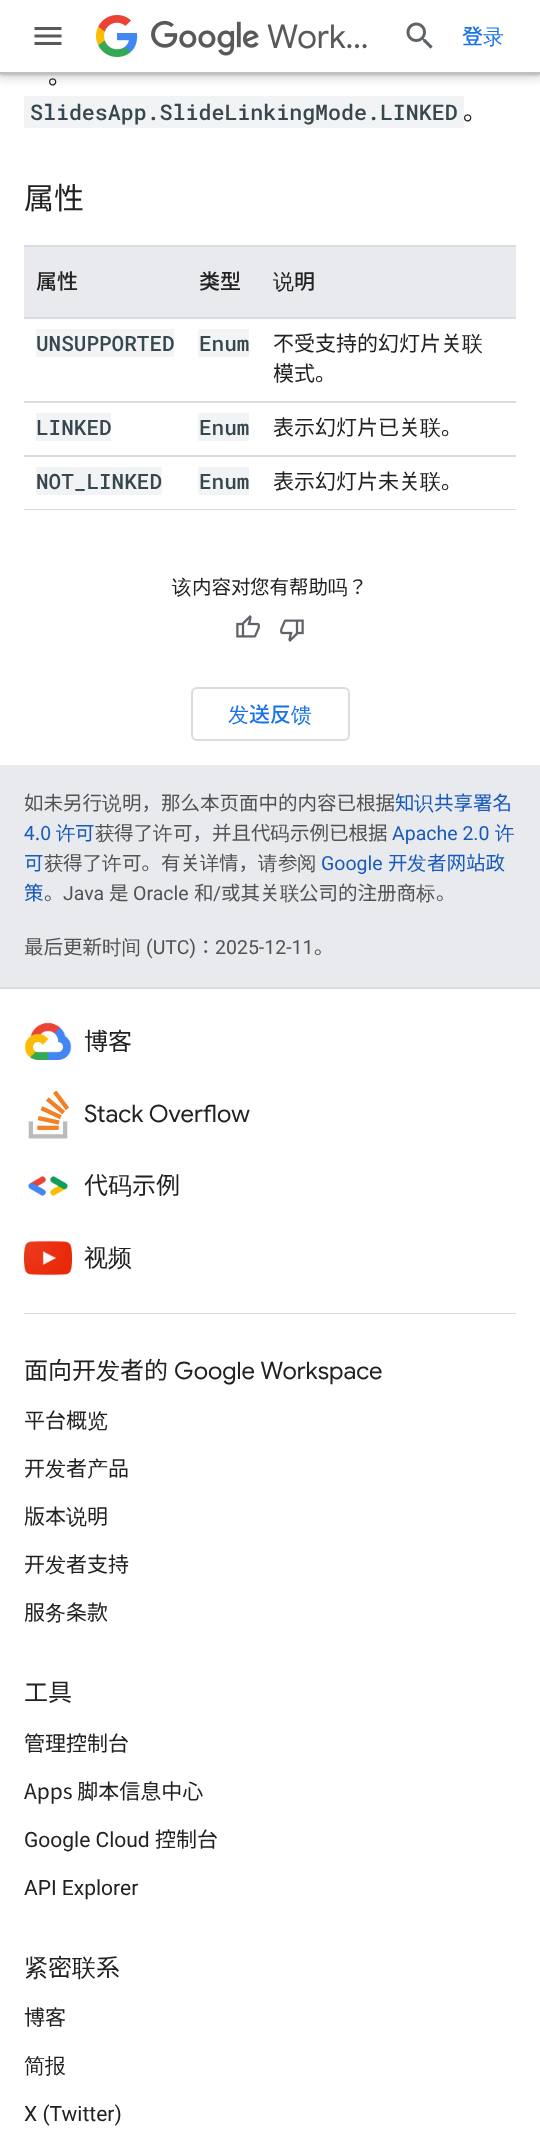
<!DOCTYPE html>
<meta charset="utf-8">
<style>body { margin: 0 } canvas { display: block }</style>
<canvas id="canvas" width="540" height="2155"></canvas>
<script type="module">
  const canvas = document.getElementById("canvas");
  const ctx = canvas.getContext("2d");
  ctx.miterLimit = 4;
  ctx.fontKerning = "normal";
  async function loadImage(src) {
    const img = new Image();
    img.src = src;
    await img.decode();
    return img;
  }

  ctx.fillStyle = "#e8eaed";
  ctx.fillRect(0, 0, 540, 2155);
  ctx.fillStyle = "#ffffff";
  ctx.fillRect(0, 74, 540, 691);
  ctx.fillStyle = "rgba(60, 64, 67, 0.15)";
  ctx.filter = "blur(4.5px)";
  ctx.beginPath();
  ctx.rect(-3, -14, 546, 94);
  ctx.fill();
  ctx.filter = "none";
  ctx.fillStyle = "rgba(60, 64, 67, 0.3)";
  ctx.filter = "blur(1.5px)";
  ctx.beginPath();
  ctx.rect(0, -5, 540, 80);
  ctx.fill();
  ctx.filter = "none";
  ctx.fillStyle = "#ffffff";
  ctx.fillRect(0, 0, 540, 72);
  ctx.fillStyle = "#bdc1c6";
  ctx.fillRect(0, 72, 540, 2);
  ctx.drawImage(await loadImage("img1.png"), 34, 27, 28, 18);
  ctx.drawImage(await loadImage("img2.png"), 96, 15, 42, 42);
  ctx.drawImage(await loadImage("img3.png"), 151, 20, 108, 36);
  ctx.font = "33px Google Sans";
  ctx.fillStyle = "#595959";
  ctx.fillText("Work…", 267, 48);
  ctx.drawImage(await loadImage("img4.png"), 406, 22, 27, 27);
  ctx.font = "500 21px Noto Sans JP";
  ctx.fillStyle = "#1a73e8";
  ctx.fillText("登", 462, 44);
  ctx.font = "500 21px WenQuanYi Zen Hei";
  ctx.fillText("录", 483, 44);
  ctx.font = "24px Noto Sans JP";
  ctx.fillStyle = "#212121";
  ctx.fillText("。", 48, 84);
  ctx.fillStyle = "#f1f3f4";
  ctx.fillRect(24, 96, 440, 32);
  ctx.font = "500 21.6px Roboto Mono";
  ctx.fillStyle = "#37474f";
  ctx.fillText("SlidesApp.SlideLinkingMode.LINKED", 30, 120);
  ctx.font = "24px Noto Sans JP";
  ctx.fillStyle = "#212121";
  ctx.fillText("。", 463, 120);
  ctx.font = "30px Noto Sans JP";
  ctx.fillText("属性", 24, 209);
  ctx.fillStyle = "#dadce0";
  ctx.fillRect(24, 245, 492, 2);
  ctx.fillRect(24, 317, 492, 2);
  ctx.fillStyle = "#e8eaed";
  ctx.fillRect(24, 247, 492, 70);
  ctx.font = "500 21px Noto Sans JP";
  ctx.fillStyle = "#212121";
  ctx.fillText("属性", 36, 289);
  ctx.fillText("类型", 199, 289);
  ctx.font = "500 21px WenQuanYi Zen Hei";
  ctx.fillText("说", 273, 289);
  ctx.font = "500 21px Noto Sans JP";
  ctx.fillText("明", 294, 289);
  ctx.fillStyle = "#dadce0";
  ctx.fillRect(24, 401, 492, 2);
  ctx.fillStyle = "#f1f3f4";
  ctx.fillRect(36, 329, 138, 28);
  ctx.font = "500 21px Roboto Mono";
  ctx.fillStyle = "#37474f";
  ctx.fillText("UNSUPPORTED", 36, 351);
  ctx.fillStyle = "#f1f3f4";
  ctx.fillRect(198, 329, 51, 28);
  ctx.fillStyle = "#37474f";
  ctx.fillText("Enum", 199, 351);
  ctx.font = "21px Noto Sans JP";
  ctx.fillStyle = "#212121";
  ctx.fillText("不受支持的幻灯片关", 273, 351);
  ctx.font = "500 21px WenQuanYi Zen Hei";
  ctx.fillText("联", 462, 351);
  ctx.font = "21px Noto Sans JP";
  ctx.fillText("模式。", 273, 381);
  ctx.fillStyle = "#dadce0";
  ctx.fillRect(24, 455, 492, 2);
  ctx.fillStyle = "#f1f3f4";
  ctx.fillRect(36, 413, 75, 28);
  ctx.font = "500 21px Roboto Mono";
  ctx.fillStyle = "#37474f";
  ctx.fillText("LINKED", 36, 435);
  ctx.fillStyle = "#f1f3f4";
  ctx.fillRect(198, 413, 51, 28);
  ctx.fillStyle = "#37474f";
  ctx.fillText("Enum", 199, 435);
  ctx.font = "21px Noto Sans JP";
  ctx.fillStyle = "#212121";
  ctx.fillText("表示幻灯片已关", 273, 435);
  ctx.font = "500 21px WenQuanYi Zen Hei";
  ctx.fillText("联", 420, 435);
  ctx.font = "21px Noto Sans JP";
  ctx.fillText("。", 441, 435);
  ctx.fillStyle = "#dadce0";
  ctx.fillRect(24, 509, 492, 1);
  ctx.fillStyle = "#f1f3f4";
  ctx.fillRect(36, 467, 126, 28);
  ctx.font = "500 21px Roboto Mono";
  ctx.fillStyle = "#37474f";
  ctx.fillText("NOT_LINKED", 36, 489);
  ctx.fillStyle = "#f1f3f4";
  ctx.fillRect(198, 467, 51, 28);
  ctx.fillStyle = "#37474f";
  ctx.fillText("Enum", 199, 489);
  ctx.font = "21px Noto Sans JP";
  ctx.fillStyle = "#212121";
  ctx.fillText("表示幻灯片未关", 273, 489);
  ctx.font = "500 21px WenQuanYi Zen Hei";
  ctx.fillText("联", 420, 489);
  ctx.font = "21px Noto Sans JP";
  ctx.fillText("。", 441, 489);
  ctx.font = "500 19.5px WenQuanYi Zen Hei";
  ctx.fillText("该", 172, 594);
  ctx.font = "19.5px Noto Sans JP";
  ctx.fillText("内容", 192, 594);
  ctx.font = "19.5px Noto Sans KR";
  ctx.fillText("对", 231, 594);
  ctx.font = "19.5px Noto Sans JP";
  ctx.fillText("您有帮助", 250, 594);
  ctx.font = "500 19.5px WenQuanYi Zen Hei";
  ctx.fillText("吗", 328, 594);
  ctx.font = "19.5px Noto Sans JP";
  ctx.fillText("？", 348, 594);
  ctx.drawImage(await loadImage("img5.png"), 236, 615, 24, 23);
  ctx.drawImage(await loadImage("img6.png"), 280, 619, 24, 23);
  ctx.beginPath();
  ctx.roundRect(192, 688, 157, 52, 5);
  ctx.strokeStyle = "#dadce0";
  ctx.lineWidth = 2;
  ctx.stroke();
  ctx.font = "500 21px WenQuanYi Zen Hei";
  ctx.fillStyle = "#1a73e8";
  ctx.fillText("发", 228, 722);
  ctx.font = "500 21px Noto Sans JP";
  ctx.fillText("送反", 249, 722);
  ctx.font = "500 21px WenQuanYi Zen Hei";
  ctx.fillText("馈", 291, 722);
  ctx.font = "19.5px Noto Sans JP";
  ctx.fillStyle = "#515253";
  ctx.fillText("如未另行", 24, 810);
  ctx.font = "500 19.5px WenQuanYi Zen Hei";
  ctx.fillText("说", 102, 810);
  ctx.font = "19.5px Noto Sans JP";
  ctx.fillText("明，那么本页面中的内容已根据", 122, 810);
  ctx.fillStyle = "#185abc";
  ctx.fillText("知", 395, 810);
  ctx.font = "500 19.5px WenQuanYi Zen Hei";
  ctx.fillText("识", 414, 810);
  ctx.font = "19.5px Noto Sans JP";
  ctx.fillText("共享署名", 434, 810);
  ctx.fillText("4.0", 24, 840);
  ctx.font = "500 19.5px WenQuanYi Zen Hei";
  ctx.fillText("许", 56, 840);
  ctx.font = "19.5px Noto Sans JP";
  ctx.fillText("可", 75, 840);
  ctx.font = "500 19.5px WenQuanYi Zen Hei";
  ctx.fillStyle = "#515253";
  ctx.fillText("获", 95, 840);
  ctx.font = "19.5px Noto Sans JP";
  ctx.fillText("得了", 114, 840);
  ctx.font = "500 19.5px WenQuanYi Zen Hei";
  ctx.fillText("许", 153, 840);
  ctx.font = "19.5px Noto Sans JP";
  ctx.fillText("可，并且代", 173, 840);
  ctx.font = "500 19.5px WenQuanYi Zen Hei";
  ctx.fillText("码", 270, 840);
  ctx.font = "19.5px Noto Sans JP";
  ctx.fillText("示例已根据", 290, 840);
  ctx.font = "19.5px Roboto";
  ctx.fillStyle = "#185abc";
  ctx.fillText("Apache 2.0", 392, 840);
  ctx.font = "500 19.5px WenQuanYi Zen Hei";
  ctx.fillText("许", 495, 840);
  ctx.font = "19.5px Noto Sans JP";
  ctx.fillText("可", 24, 870);
  ctx.font = "500 19.5px WenQuanYi Zen Hei";
  ctx.fillStyle = "#515253";
  ctx.fillText("获", 44, 870);
  ctx.font = "19.5px Noto Sans JP";
  ctx.fillText("得了", 63, 870);
  ctx.font = "500 19.5px WenQuanYi Zen Hei";
  ctx.fillText("许", 102, 870);
  ctx.font = "19.5px Noto Sans JP";
  ctx.fillText("可。有关", 122, 870);
  ctx.font = "500 19.5px WenQuanYi Zen Hei";
  ctx.fillText("详", 200, 870);
  ctx.font = "19.5px Noto Sans JP";
  ctx.fillText("情，", 219, 870);
  ctx.font = "500 19.5px WenQuanYi Zen Hei";
  ctx.fillText("请", 258, 870);
  ctx.font = "19.5px Noto Sans JP";
  ctx.fillText("参", 278, 870);
  ctx.font = "500 19.5px WenQuanYi Zen Hei";
  ctx.fillText("阅", 297, 870);
  ctx.font = "19.5px Roboto";
  ctx.fillStyle = "#185abc";
  ctx.fillText("Google", 321, 870);
  ctx.font = "19.5px Noto Sans JP";
  ctx.fillText("开", 388, 870);
  ctx.font = "500 19.5px WenQuanYi Zen Hei";
  ctx.fillText("发", 407, 870);
  ctx.font = "19.5px Noto Sans JP";
  ctx.fillText("者网站政", 427, 870);
  ctx.fillText("策", 24, 900);
  ctx.fillStyle = "#515253";
  ctx.fillText("。", 44, 900);
  ctx.font = "19.5px Roboto";
  ctx.fillText("Java", 63, 900);
  ctx.font = "19.5px Noto Sans JP";
  ctx.fillText("是", 109, 900);
  ctx.font = "19.5px Roboto";
  ctx.fillText("Oracle", 133, 900);
  ctx.font = "19.5px Noto Sans JP";
  ctx.fillText("和", 194, 900);
  ctx.font = "19.5px Roboto";
  ctx.fillText("/", 213, 900);
  ctx.font = "19.5px Noto Sans JP";
  ctx.fillText("或其关", 221, 900);
  ctx.font = "500 19.5px WenQuanYi Zen Hei";
  ctx.fillText("联", 280, 900);
  ctx.font = "19.5px Noto Sans JP";
  ctx.fillText("公司的注册商", 299, 900);
  ctx.font = "500 19.5px WenQuanYi Zen Hei";
  ctx.fillText("标", 416, 900);
  ctx.font = "19.5px Noto Sans JP";
  ctx.fillText("。", 436, 900);
  ctx.fillText("最后更新", 24, 954);
  ctx.font = "500 19.5px WenQuanYi Zen Hei";
  ctx.fillText("时间", 102, 954);
  ctx.font = "19.5px Roboto";
  ctx.fillText("(UTC)", 146, 954);
  ctx.font = "19.5px Noto Sans JP";
  ctx.fillText("：", 196, 954);
  ctx.font = "19.5px Roboto";
  ctx.fillText("2025-12-11", 215, 954);
  ctx.font = "19.5px Noto Sans JP";
  ctx.fillText("。", 314, 954);
  ctx.fillStyle = "#ffffff";
  ctx.fillRect(0, 989, 540, 1166);
  ctx.fillStyle = "#dadce0";
  ctx.fillRect(0, 987, 540, 2);
  ctx.fillRect(24, 1313, 492, 1);
  ctx.drawImage(await loadImage("img7.png"), 24, 1022, 48, 38);
  ctx.font = "24px Noto Sans JP";
  ctx.fillStyle = "#212121";
  ctx.fillText("博客", 84, 1050);
  ctx.drawImage(await loadImage("img8.png"), 28, 1091, 42, 48);
  ctx.font = "24px Google Sans";
  ctx.fillText("Stack Overflow", 84, 1122);
  ctx.drawImage(await loadImage("img9.png"), 28, 1176, 40, 20);
  ctx.font = "24px Noto Sans JP";
  ctx.fillText("代", 84, 1194);
  ctx.font = "500 24px WenQuanYi Zen Hei";
  ctx.fillText("码", 108, 1194);
  ctx.font = "24px Noto Sans JP";
  ctx.fillText("示例", 132, 1194);
  ctx.drawImage(await loadImage("img10.png"), 24, 1240, 48, 36);
  ctx.font = "500 24px WenQuanYi Zen Hei";
  ctx.fillText("视频", 84, 1266);
  ctx.font = "24px Noto Sans JP";
  ctx.fillText("面向开", 24, 1379);
  ctx.font = "500 24px WenQuanYi Zen Hei";
  ctx.fillText("发", 96, 1379);
  ctx.font = "24px Noto Sans JP";
  ctx.fillText("者的", 120, 1379);
  ctx.font = "24px Google Sans";
  ctx.fillText("Google Workspace", 174, 1379);
  ctx.font = "21px Noto Sans JP";
  ctx.fillText("平台概", 24, 1428);
  ctx.font = "500 21px WenQuanYi Zen Hei";
  ctx.fillText("览", 87, 1428);
  ctx.font = "21px Noto Sans JP";
  ctx.fillText("开", 24, 1476);
  ctx.font = "500 21px WenQuanYi Zen Hei";
  ctx.fillText("发", 45, 1476);
  ctx.font = "21px Noto Sans JP";
  ctx.fillText("者", 66, 1476);
  ctx.font = "500 21px WenQuanYi Zen Hei";
  ctx.fillText("产", 87, 1476);
  ctx.font = "21px Noto Sans JP";
  ctx.fillText("品", 108, 1476);
  ctx.fillText("版本", 24, 1524);
  ctx.font = "500 21px WenQuanYi Zen Hei";
  ctx.fillText("说", 66, 1524);
  ctx.font = "21px Noto Sans JP";
  ctx.fillText("明", 87, 1524);
  ctx.fillText("开", 24, 1572);
  ctx.font = "500 21px WenQuanYi Zen Hei";
  ctx.fillText("发", 45, 1572);
  ctx.font = "21px Noto Sans JP";
  ctx.fillText("者支持", 66, 1572);
  ctx.fillText("服", 24, 1620);
  ctx.font = "500 21px WenQuanYi Zen Hei";
  ctx.fillText("务", 45, 1620);
  ctx.font = "21px Noto Sans JP";
  ctx.fillText("条款", 66, 1620);
  ctx.font = "24px Noto Sans JP";
  ctx.fillText("工具", 24, 1701);
  ctx.font = "21px Noto Sans JP";
  ctx.fillText("管理控制台", 24, 1751);
  ctx.fillText("Apps 脚本信息中心", 24, 1799);
  ctx.font = "21px Roboto";
  ctx.fillText("Google Cloud", 24, 1847);
  ctx.font = "21px Noto Sans JP";
  ctx.fillText("控制台", 155, 1847);
  ctx.font = "21px Roboto";
  ctx.fillText("API Explorer", 24, 1895);
  ctx.font = "500 24px WenQuanYi Zen Hei";
  ctx.fillText("紧", 24, 1976);
  ctx.font = "24px Noto Sans JP";
  ctx.fillText("密", 48, 1976);
  ctx.font = "500 24px WenQuanYi Zen Hei";
  ctx.fillText("联", 72, 1976);
  ctx.font = "24px Noto Sans JP";
  ctx.fillText("系", 96, 1976);
  ctx.font = "21px Noto Sans JP";
  ctx.fillText("博客", 24, 2025);
  ctx.font = "500 21px WenQuanYi Zen Hei";
  ctx.fillText("简报", 24, 2073);
  ctx.font = "21px Roboto";
  ctx.fillText("X (Twitter)", 24, 2121);
</script>
